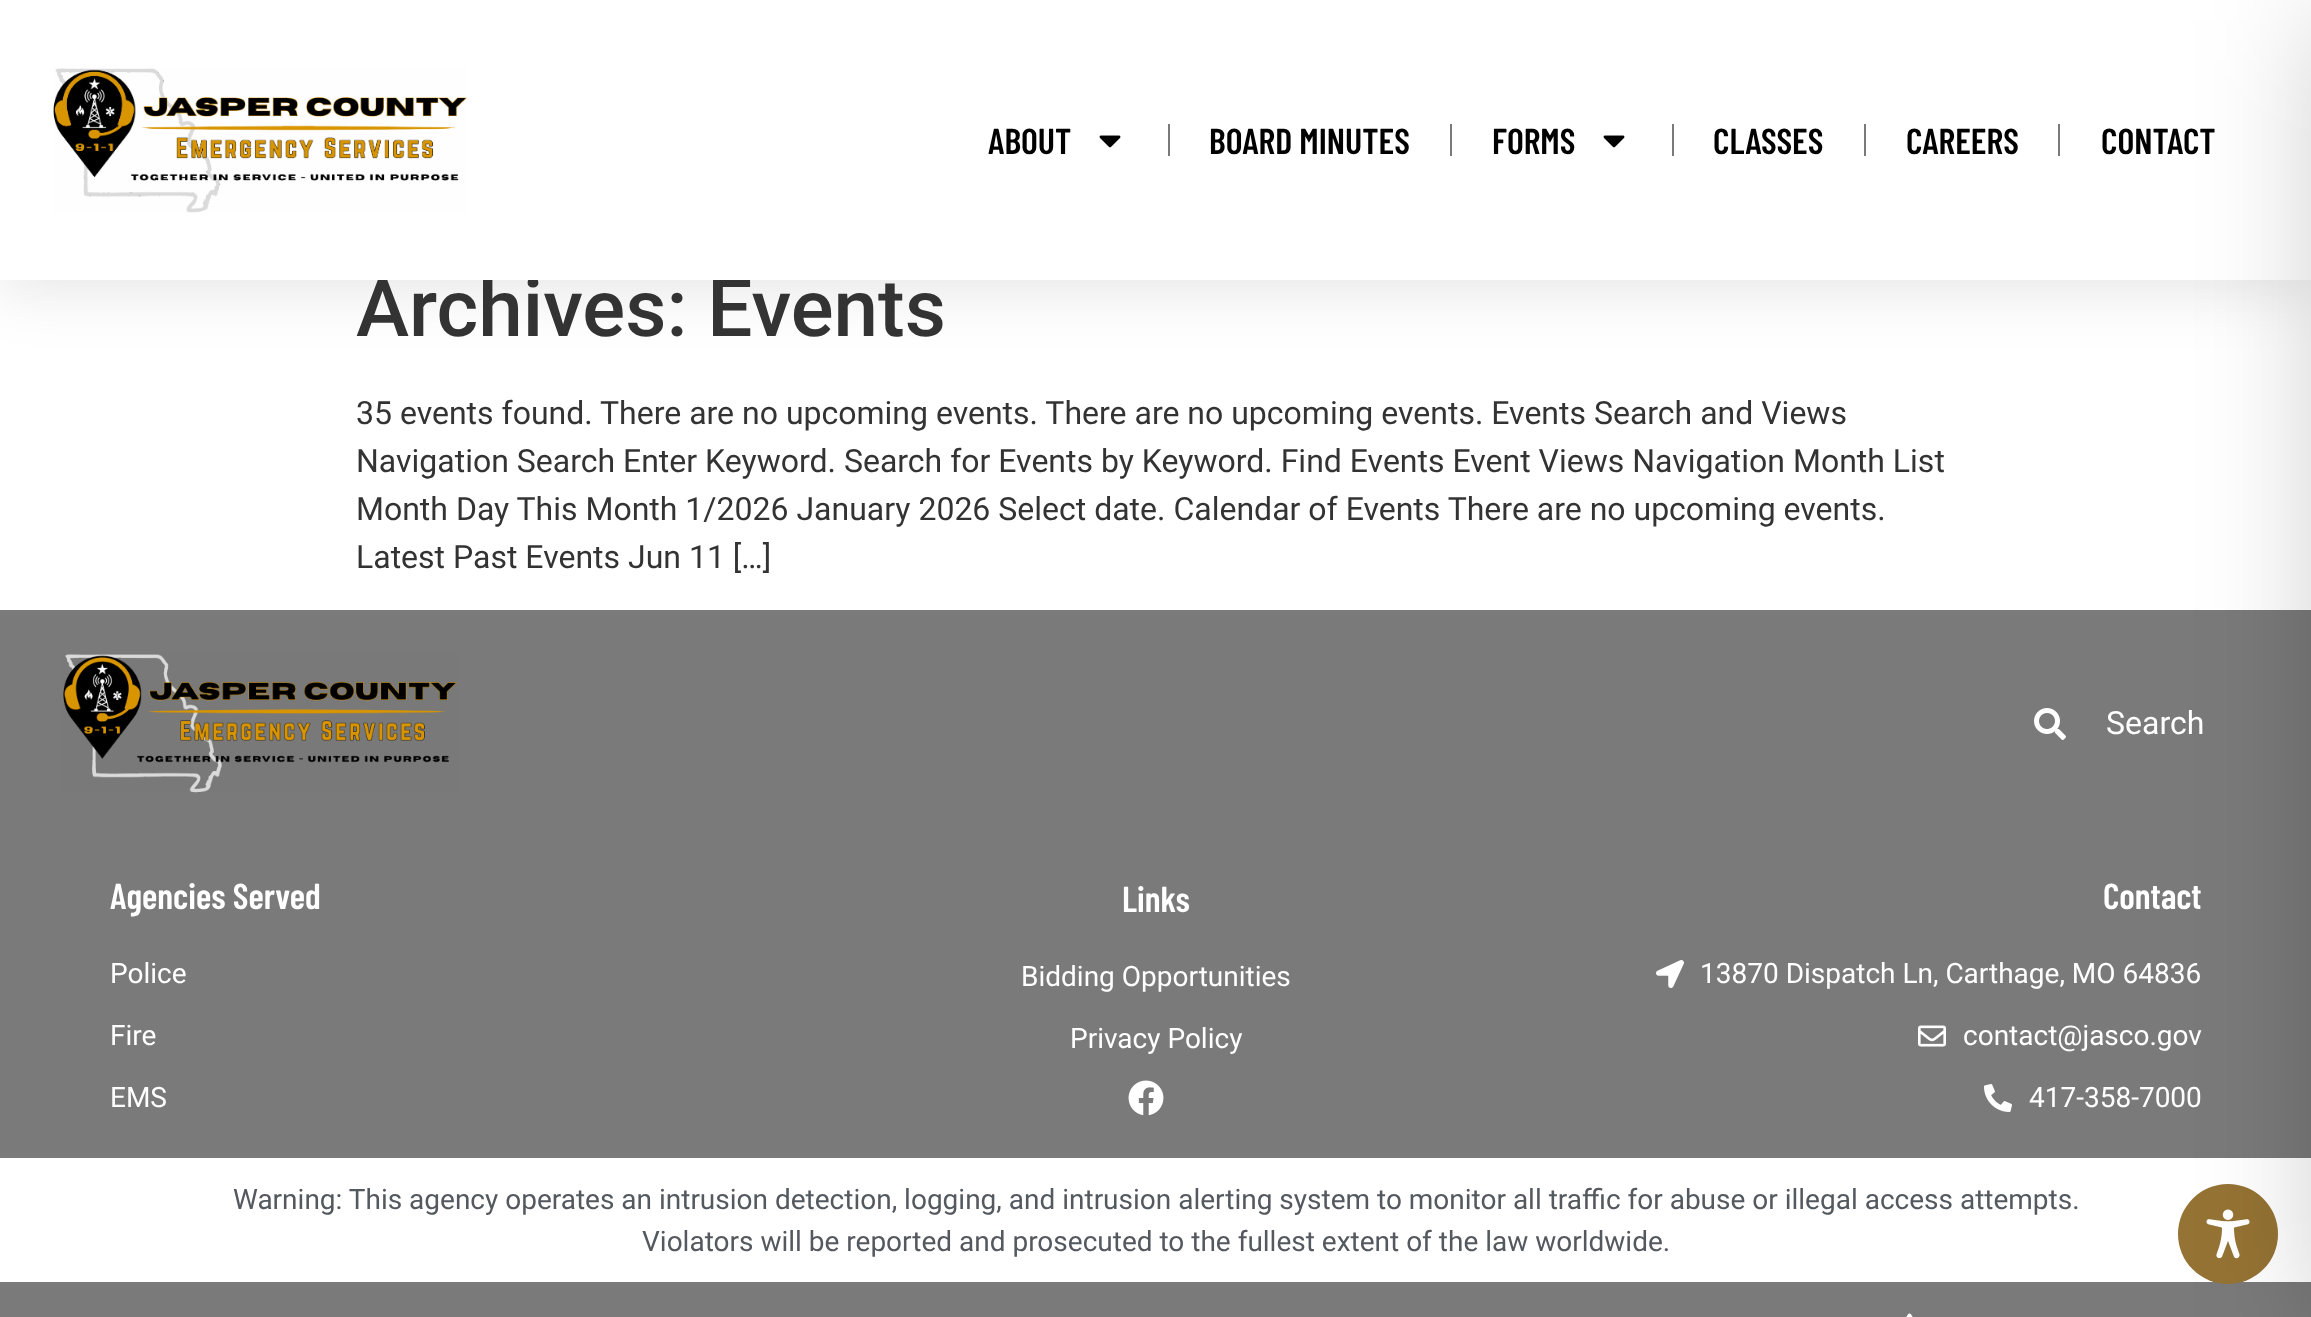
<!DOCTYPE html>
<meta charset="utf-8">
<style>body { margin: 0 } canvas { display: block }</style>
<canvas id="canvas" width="2311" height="1317"></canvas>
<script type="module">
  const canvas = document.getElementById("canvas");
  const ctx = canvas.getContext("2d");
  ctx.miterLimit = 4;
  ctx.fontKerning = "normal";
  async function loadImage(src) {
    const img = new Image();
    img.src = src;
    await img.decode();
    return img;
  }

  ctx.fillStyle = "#ffffff";
  ctx.fillRect(0, 0, 2311, 1317);
  ctx.fillStyle = "rgba(0, 0, 0, 0.1)";
  ctx.filter = "blur(30px)";
  ctx.beginPath();
  ctx.rect(0, 10, 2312, 280);
  ctx.fill();
  ctx.filter = "none";
  ctx.font = "500 80px Roboto";
  ctx.fillStyle = "#333333";
  ctx.fillText("Archives: Events", 356, 336);
  ctx.fillStyle = "#ffffff";
  ctx.fillRect(0, 0, 2311, 280);
  ctx.drawImage(await loadImage("img1.png"), 53, 68, 414, 145);
  ctx.font = "600 36px Barlow Condensed";
  ctx.fillStyle = "#000000";
  ctx.fillText("ABOUT", 988, 154);
  ctx.drawImage(await loadImage("img2.png"), 1099, 135, 22, 13);
  ctx.fillStyle = "#7a7a7a";
  ctx.fillRect(1168, 124, 2, 32);
  ctx.fillStyle = "#000000";
  ctx.fillText("BOARD MINUTES", 1209, 154);
  ctx.fillStyle = "#7a7a7a";
  ctx.fillRect(1450, 124, 2, 32);
  ctx.fillStyle = "#000000";
  ctx.fillText("FORMS", 1492, 154);
  ctx.drawImage(await loadImage("img2.png"), 1603, 135, 22, 13);
  ctx.fillStyle = "#7a7a7a";
  ctx.fillRect(1672, 124, 2, 32);
  ctx.fillStyle = "#000000";
  ctx.fillText("CLASSES", 1713, 154);
  ctx.fillStyle = "#7a7a7a";
  ctx.fillRect(1864, 124, 2, 32);
  ctx.fillStyle = "#000000";
  ctx.fillText("CAREERS", 1906, 154);
  ctx.fillStyle = "#7a7a7a";
  ctx.fillRect(2058, 124, 2, 32);
  ctx.fillStyle = "#000000";
  ctx.fillText("CONTACT", 2101, 154);
  ctx.fillStyle = "#7a7a7a";
  ctx.fillRect(0, 610, 2311, 548);
  ctx.fillRect(0, 1282, 2311, 35);
  ctx.fillStyle = "#957334";
  ctx.beginPath();
  ctx.arc(2228, 1234, 50, 0, Math.PI * 2);
  ctx.fill();
  ctx.drawImage(await loadImage("img10.png"), 2206, 1209, 44, 50);
  ctx.fillStyle = "rgba(0, 0, 0, 0.2)";
  ctx.filter = "blur(60px)";
  ctx.beginPath();
  ctx.rect(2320, 20, 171, 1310);
  ctx.fill();
  ctx.filter = "none";
  ctx.font = "32px Roboto";
  ctx.fillStyle = "#333333";
  ctx.fillText("35 events found. There are no upcoming events. There are no upcoming events. Events Search and Views", 356, 424);
  ctx.fillText("Navigation Search Enter Keyword. Search for Events by Keyword. Find Events Event Views Navigation Month List", 356, 472);
  ctx.fillText("Month Day This Month 1/2026 January 2026 Select date. Calendar of Events There are no upcoming events.", 356, 520);
  ctx.fillText("Latest Past Events Jun 11 […]", 356, 568);
  ctx.drawImage(await loadImage("img3.png"), 63, 654, 394, 139);
  ctx.drawImage(await loadImage("img4.png"), 2034, 708, 32, 32);
  ctx.fillStyle = "#ffffff";
  ctx.fillText("Search", 2106, 734);
  ctx.font = "600 36px Barlow Condensed";
  ctx.fillText("Agencies Served", 110, 909);
  ctx.font = "28px Roboto";
  ctx.fillText("Police", 110, 983);
  ctx.fillText("Fire", 110, 1045);
  ctx.fillText("EMS", 110, 1107);
  ctx.font = "600 36px Barlow Condensed";
  ctx.fillText("Links", 1122, 912);
  ctx.font = "28px Roboto";
  ctx.fillText("Bidding Opportunities", 1021, 986);
  ctx.fillText("Privacy Policy", 1070, 1048);
  ctx.drawImage(await loadImage("img5.png"), 1128, 1080, 36, 36);
  ctx.font = "600 36px Barlow Condensed";
  ctx.fillText("Contact", 2103, 909);
  ctx.drawImage(await loadImage("img6.png"), 1656, 960, 28, 28);
  ctx.font = "28px Roboto";
  ctx.fillText("13870 Dispatch Ln, Carthage, MO 64836", 1700, 983);
  ctx.drawImage(await loadImage("img7.png"), 1918, 1025, 28, 22);
  ctx.fillText("contact@jasco.gov", 1963, 1045);
  ctx.drawImage(await loadImage("img8.png"), 1984, 1084, 28, 28);
  ctx.fillText("417-358-7000", 2029, 1107);
  ctx.fillStyle = "#54595f";
  ctx.fillText("Warning: This agency operates an intrusion detection, logging, and intrusion alerting system to monitor all traffic for abuse or illegal access attempts.", 233, 1209);
  ctx.fillText("Violators will be reported and prosecuted to the fullest extent of the law worldwide.", 642, 1251);
  ctx.drawImage(await loadImage("img9.png"), 1906, 1313, 7, 4);
</script>
